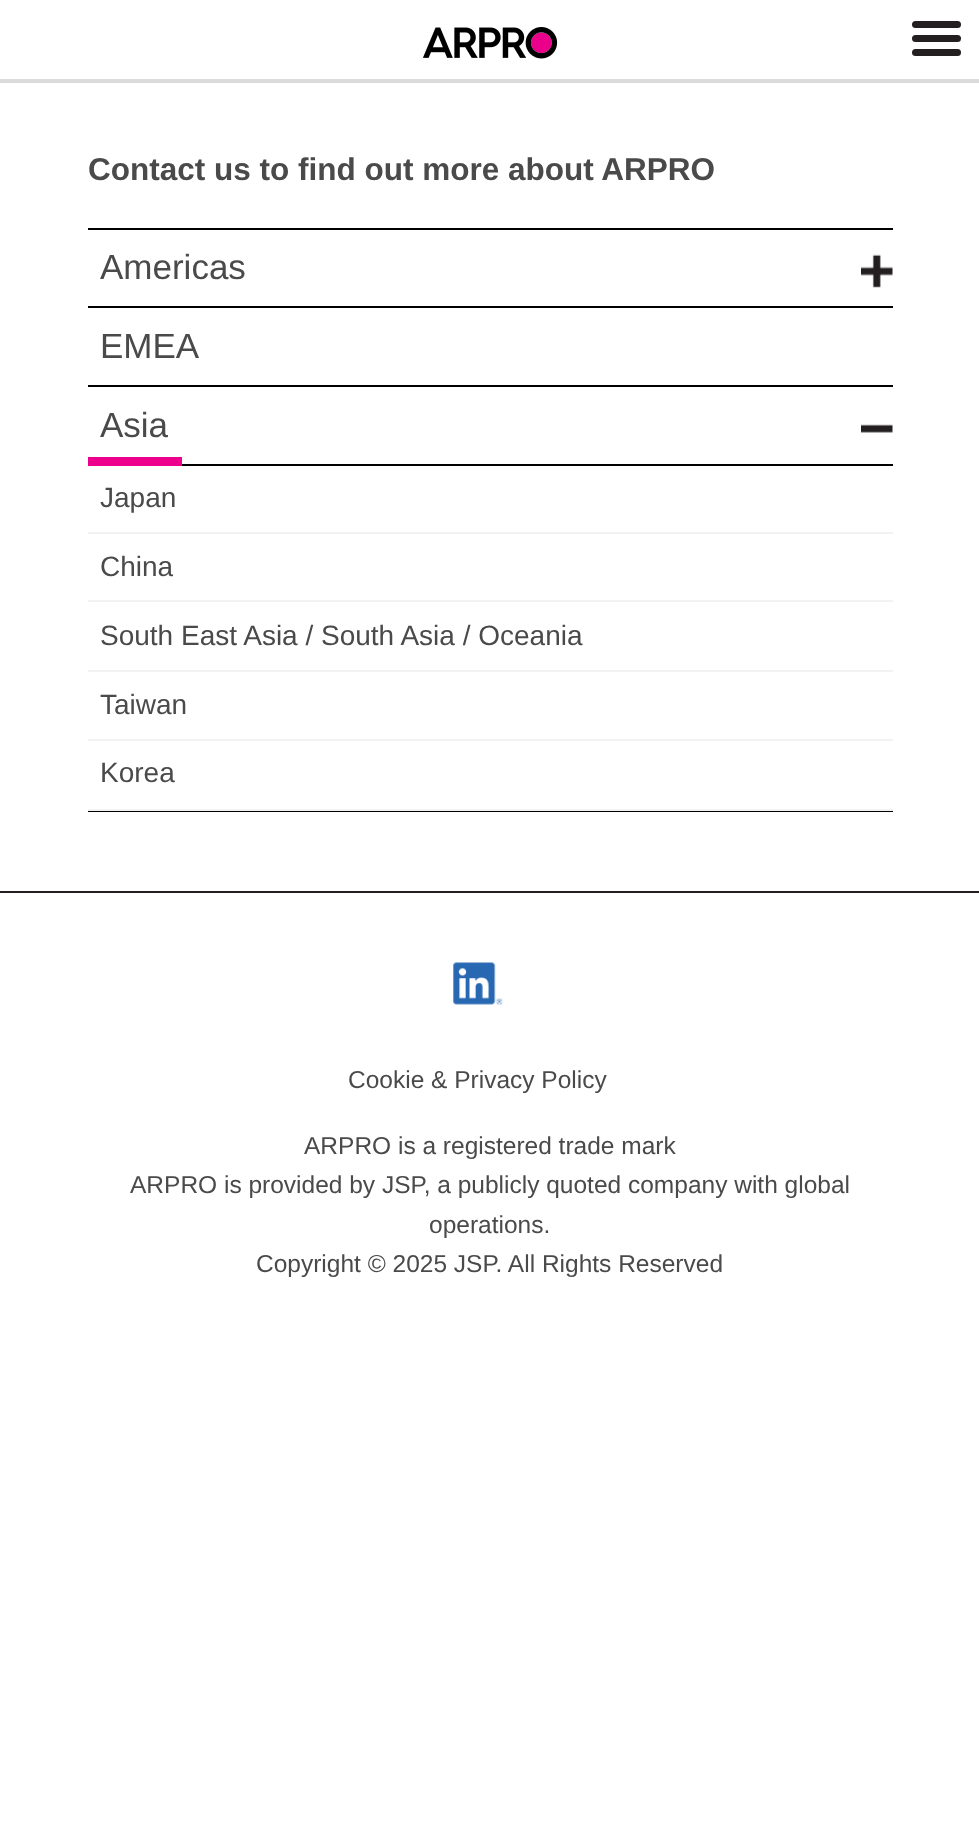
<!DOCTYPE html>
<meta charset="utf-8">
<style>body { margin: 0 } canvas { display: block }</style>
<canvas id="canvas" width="979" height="1837"></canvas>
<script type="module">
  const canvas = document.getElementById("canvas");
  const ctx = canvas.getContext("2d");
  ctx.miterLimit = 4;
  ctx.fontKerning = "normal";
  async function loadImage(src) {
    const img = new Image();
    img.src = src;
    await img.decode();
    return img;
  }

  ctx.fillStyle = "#ffffff";
  ctx.fillRect(0, 0, 979, 1837);
  ctx.fillStyle = "#231f20";
  ctx.beginPath();
  ctx.roundRect(912, 21, 49, 7, 3.5);
  ctx.fill();
  ctx.beginPath();
  ctx.roundRect(912, 35, 49, 7, 3.5);
  ctx.fill();
  ctx.beginPath();
  ctx.roundRect(912, 49, 49, 7, 3.5);
  ctx.fill();
  ctx.fillStyle = "#dbdbdb";
  ctx.fillRect(0, 79, 979, 4);
  ctx.drawImage(await loadImage("img1.png"), 423, 27, 135, 32);
  ctx.font = "bold 31.5px Liberation Sans";
  ctx.fillStyle = "#4a4a4a";
  ctx.fillText("Contact us to find out more about ARPRO", 88, 180);
  ctx.fillStyle = "#000000";
  ctx.fillRect(88, 228, 805, 2);
  ctx.fillRect(88, 306, 805, 2);
  ctx.font = "35px Liberation Sans";
  ctx.fillStyle = "#4a4a4a";
  ctx.fillText("Americas", 100, 279);
  ctx.drawImage(await loadImage("img2.png"), 861, 254, 32, 34);
  ctx.fillStyle = "#000000";
  ctx.fillRect(88, 385, 805, 2);
  ctx.fillStyle = "#4a4a4a";
  ctx.fillText("EMEA", 100, 358);
  ctx.fillStyle = "#000000";
  ctx.fillRect(88, 811, 805, 1);
  ctx.fillStyle = "#4a4a4a";
  ctx.fillText("Asia", 100, 437);
  ctx.fillStyle = "#ec008c";
  ctx.fillRect(88, 457, 94, 9);
  ctx.drawImage(await loadImage("img3.png"), 861, 424, 32, 9);
  ctx.fillStyle = "#000000";
  ctx.fillRect(182, 464, 711, 2);
  ctx.fillStyle = "#f2f2f2";
  ctx.fillRect(88, 532, 805, 2);
  ctx.font = "28px Liberation Sans";
  ctx.fillStyle = "#4a4a4a";
  ctx.fillText("Japan", 100, 507);
  ctx.fillStyle = "#f2f2f2";
  ctx.fillRect(88, 600, 805, 2);
  ctx.fillStyle = "#4a4a4a";
  ctx.fillText("China", 100, 576);
  ctx.fillStyle = "#f2f2f2";
  ctx.fillRect(88, 670, 805, 2);
  ctx.fillStyle = "#4a4a4a";
  ctx.fillText("South East Asia / South Asia / Oceania", 100, 645);
  ctx.fillStyle = "#f2f2f2";
  ctx.fillRect(88, 739, 805, 2);
  ctx.fillStyle = "#4a4a4a";
  ctx.fillText("Taiwan", 100, 714);
  ctx.fillStyle = "#f2f2f2";
  ctx.fillRect(88, 809, 805, 2);
  ctx.fillStyle = "#4a4a4a";
  ctx.fillText("Korea", 100, 782);
  ctx.fillStyle = "#231f20";
  ctx.fillRect(0, 891, 979, 2);
  ctx.drawImage(await loadImage("img4.png"), 453, 962, 50, 43);
  ctx.font = "24.5px Liberation Sans";
  ctx.fillStyle = "#4a4a4a";
  ctx.fillText("Cookie & Privacy Policy", 348, 1088);
  ctx.fillText("ARPRO is a registered trade mark", 304, 1154);
  ctx.fillText("ARPRO is provided by JSP, a publicly quoted company with global", 130, 1193);
  ctx.fillText("operations.", 429, 1233);
  ctx.fillText("Copyright © 2025 JSP. All Rights Reserved", 256, 1272);
</script>
